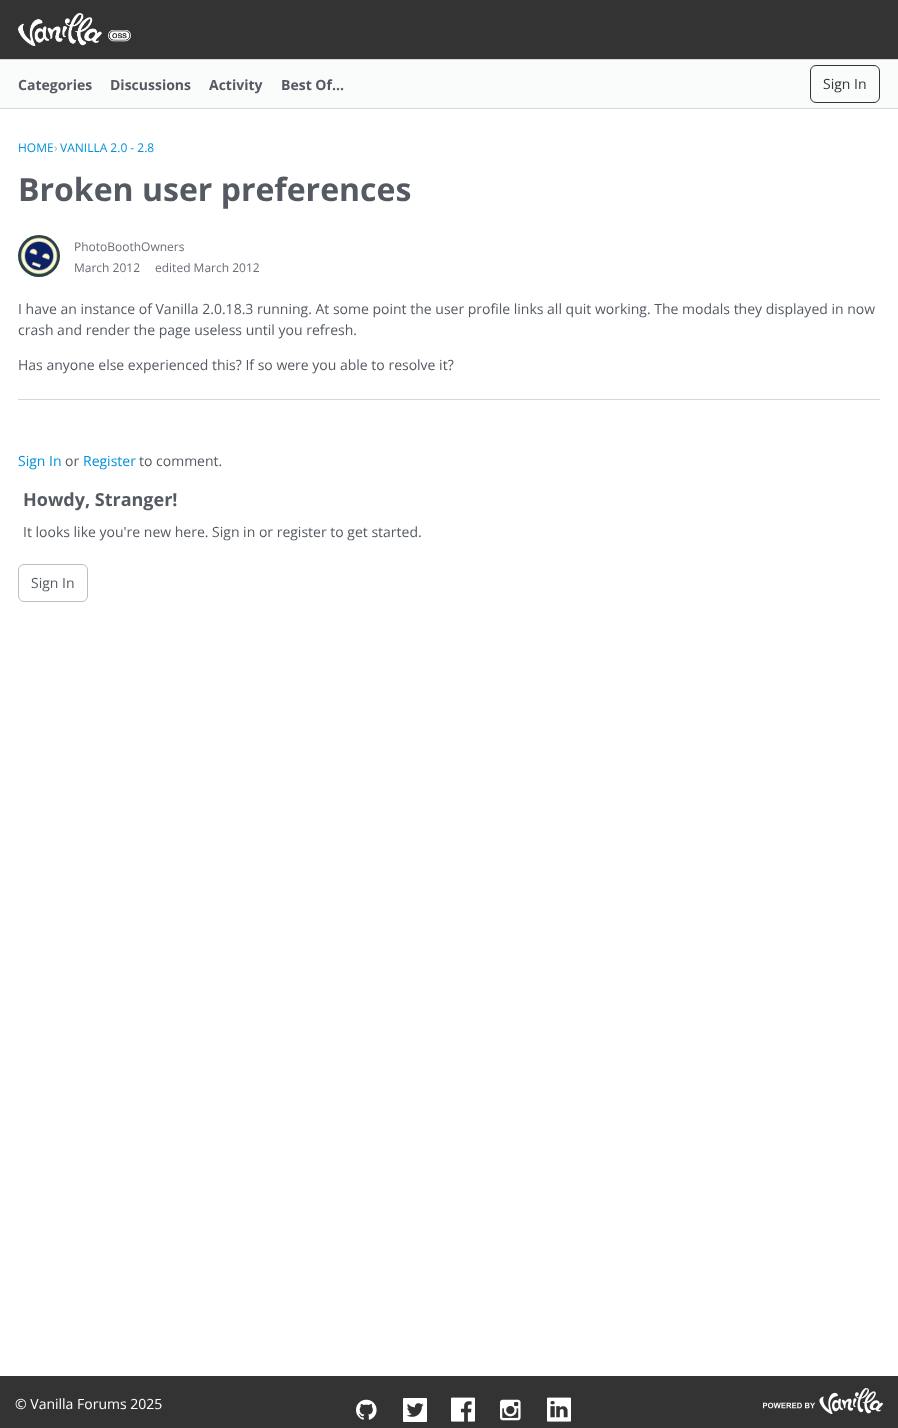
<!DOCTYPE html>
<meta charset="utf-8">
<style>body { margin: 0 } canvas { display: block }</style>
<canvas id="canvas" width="898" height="1428"></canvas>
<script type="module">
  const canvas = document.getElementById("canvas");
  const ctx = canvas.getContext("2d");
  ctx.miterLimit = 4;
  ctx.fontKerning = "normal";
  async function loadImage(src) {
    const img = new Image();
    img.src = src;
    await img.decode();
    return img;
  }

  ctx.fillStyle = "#ffffff";
  ctx.fillRect(0, 0, 898, 1428);
  ctx.fillStyle = "#333333";
  ctx.fillRect(0, 0, 898, 59);
  ctx.fillStyle = "#d6d7d9";
  ctx.fillRect(0, 59, 898, 1);
  ctx.drawImage(await loadImage("img1.png"), 18, 13, 113, 33);
  ctx.fillStyle = "#fafbfb";
  ctx.fillRect(0, 60, 898, 48);
  ctx.fillStyle = "#d6d7d9";
  ctx.fillRect(0, 108, 898, 1);
  ctx.font = "bold 14px Open Sans";
  ctx.fillStyle = "#555a62";
  ctx.fillText("Categories", 18, 90);
  ctx.fillText("Discussions", 110, 90);
  ctx.fillText("Activity", 209, 90);
  ctx.fillText("Best Of...", 281, 90);
  ctx.beginPath();
  ctx.roundRect(810.5, 65.5, 69, 37, 5.5);
  ctx.strokeStyle = "#333333";
  ctx.stroke();
  ctx.font = "14px Open Sans";
  ctx.fillStyle = "#333333";
  ctx.fillText("Sign In", 823, 89);
  ctx.font = "12px Open Sans";
  ctx.fillStyle = "#0291db";
  ctx.fillText("HOME", 18, 152);
  ctx.fillStyle = "#aaadb1";
  ctx.fillText("›", 54, 152);
  ctx.fillStyle = "#0291db";
  ctx.fillText("VANILLA 2.0 - 2.8", 60, 152);
  ctx.font = "bold 32px Open Sans";
  ctx.fillStyle = "#555a62";
  ctx.fillText("Broken user preferences", 18, 201);
  ctx.fillStyle = "#d6d7d9";
  ctx.fillRect(18, 399, 862, 1);
  ctx.drawImage(await loadImage("img2.png"), 18, 235, 42, 42);
  ctx.font = "12px Open Sans";
  ctx.fillStyle = "#696e75";
  ctx.fillText("PhotoBoothOwners", 74, 251);
  ctx.fillText("March 2012", 74, 272);
  ctx.fillText("edited March 2012", 155, 272);
  ctx.font = "14px Open Sans";
  ctx.fillStyle = "#555a62";
  ctx.fillText("I have an instance of Vanilla 2.0.18.3 running. At some point the user profile links all quit working. The modals they displayed in now", 18, 314);
  ctx.fillText("crash and render the page useless until you refresh.", 18, 335);
  ctx.fillText("Has anyone else experienced this? If so were you able to resolve it?", 18, 370);
  ctx.fillStyle = "#0291db";
  ctx.fillText("Sign In", 18, 466);
  ctx.fillStyle = "#555a62";
  ctx.fillText("or", 65, 466);
  ctx.fillStyle = "#0291db";
  ctx.fillText("Register", 83, 466);
  ctx.fillStyle = "#555a62";
  ctx.fillText("to comment.", 139, 466);
  ctx.font = "bold 18px Open Sans";
  ctx.fillText("Howdy, Stranger!", 23, 506);
  ctx.font = "14px Open Sans";
  ctx.fillText("It looks like you're new here. Sign in or register to get started.", 23, 537);
  ctx.beginPath();
  ctx.roundRect(18.5, 564.5, 69, 37, 5.5);
  ctx.strokeStyle = "#bcbec1";
  ctx.stroke();
  ctx.fillText("Sign In", 31, 588);
  ctx.fillStyle = "#333333";
  ctx.fillRect(0, 1376, 898, 52);
  ctx.fillStyle = "#ffffff";
  ctx.fillText("© Vanilla Forums 2025", 15, 1409);
  ctx.drawImage(await loadImage("img3.png"), 356, 1399, 21, 21);
  ctx.drawImage(await loadImage("img4.png"), 403, 1398, 24, 24);
  ctx.drawImage(await loadImage("img5.png"), 451, 1397, 24, 25);
  ctx.drawImage(await loadImage("img6.png"), 500, 1399, 21, 22);
  ctx.drawImage(await loadImage("img7.png"), 547, 1397, 24, 25);
  ctx.drawImage(await loadImage("img8.png"), 763, 1388, 120, 26);
</script>
